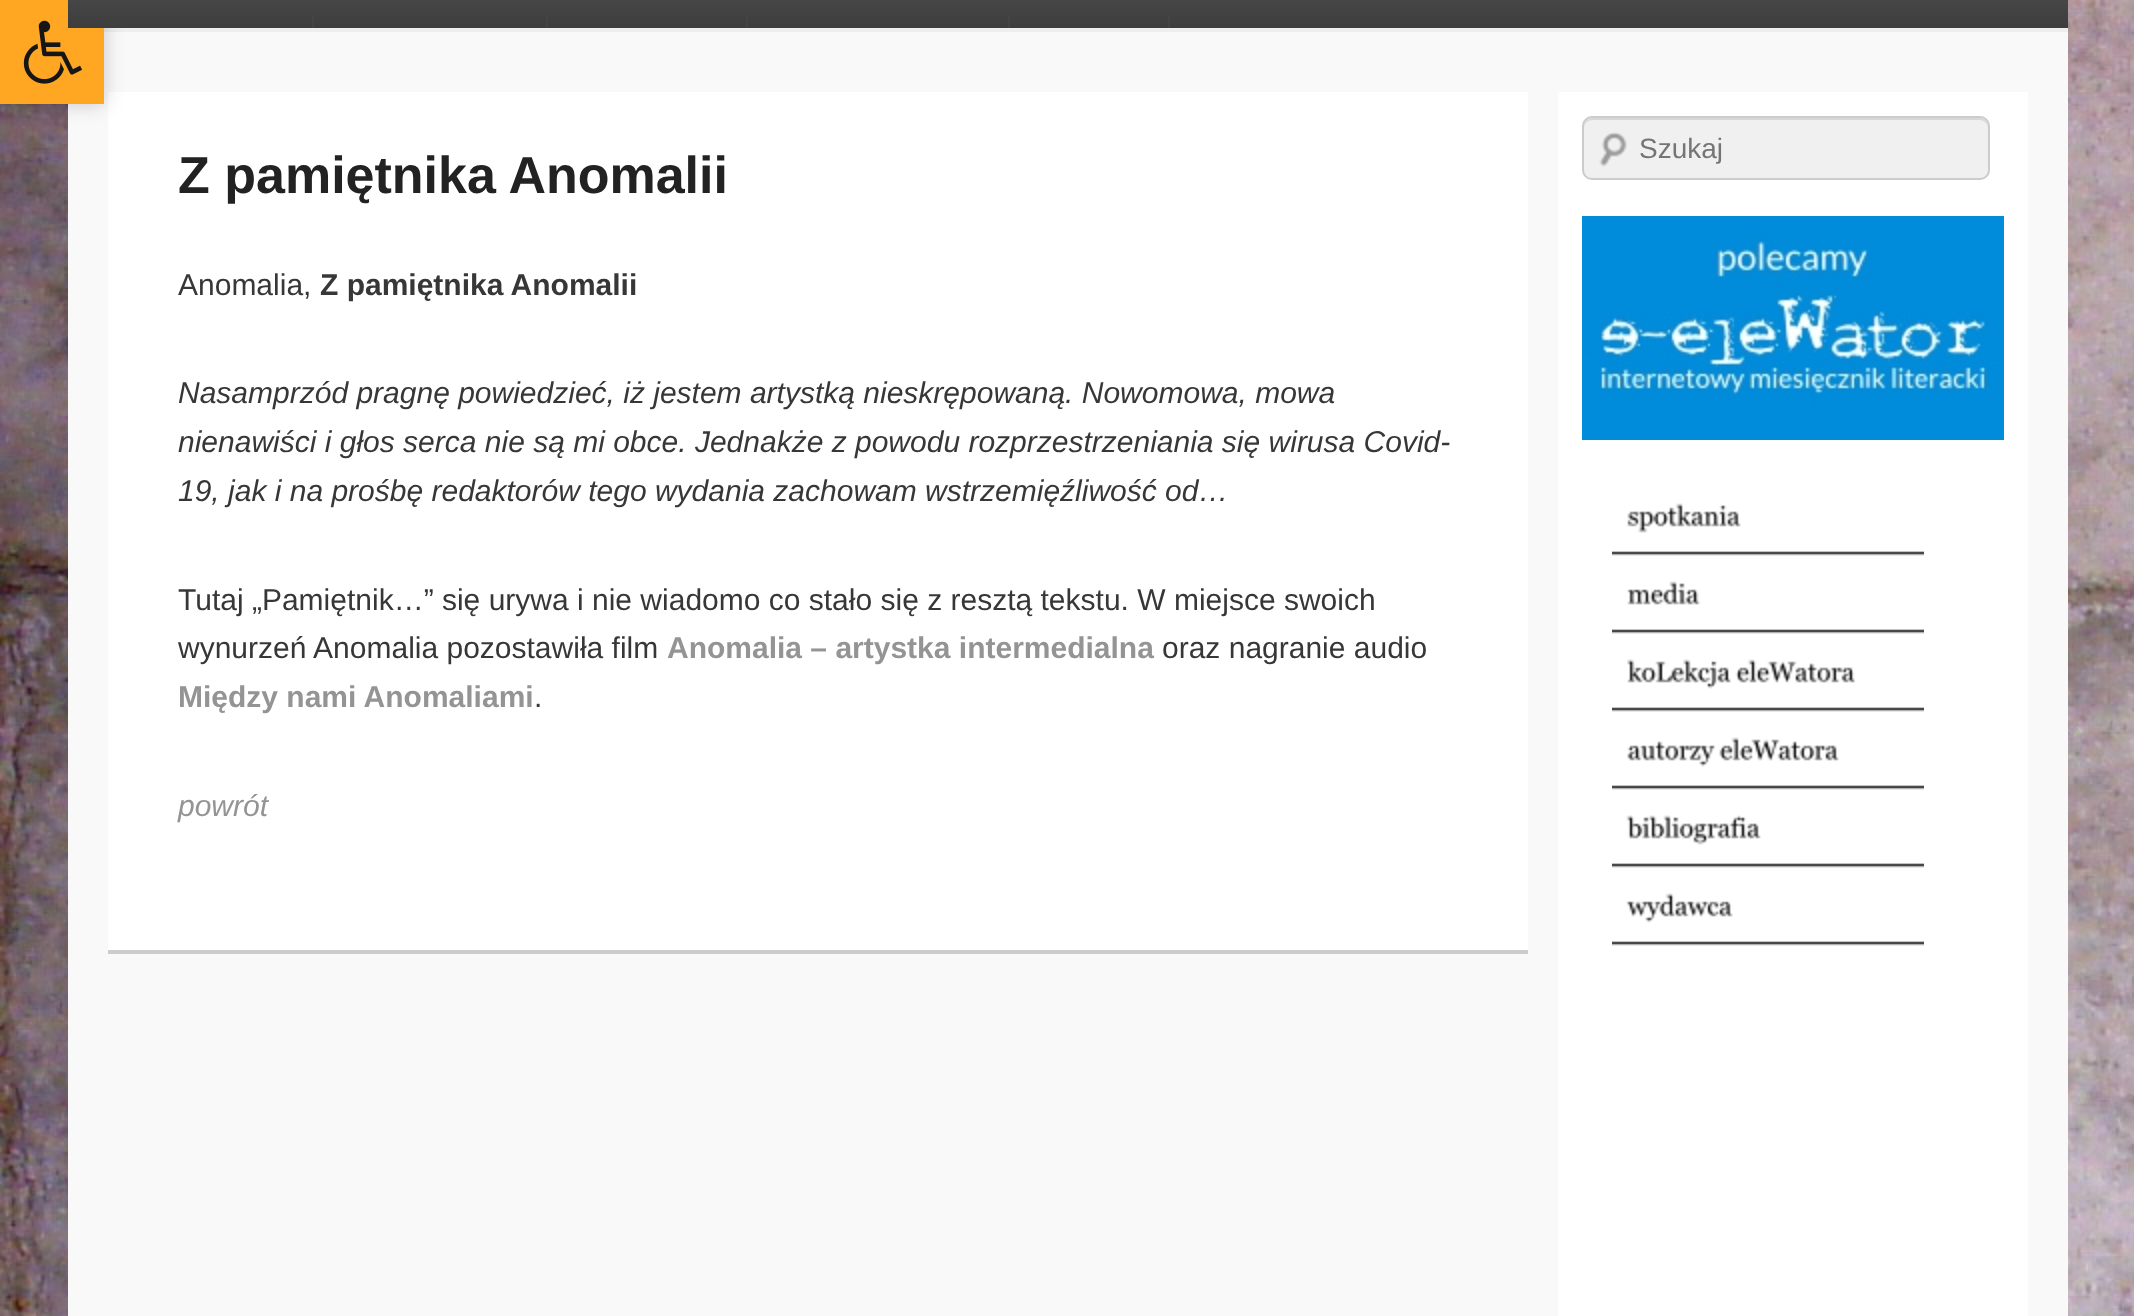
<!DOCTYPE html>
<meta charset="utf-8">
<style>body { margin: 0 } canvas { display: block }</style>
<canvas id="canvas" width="2134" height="1316"></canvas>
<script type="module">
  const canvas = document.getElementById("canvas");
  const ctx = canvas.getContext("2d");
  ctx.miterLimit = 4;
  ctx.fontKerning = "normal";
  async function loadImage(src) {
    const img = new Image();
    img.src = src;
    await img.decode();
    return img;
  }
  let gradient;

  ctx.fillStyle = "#ffffff";
  ctx.fillRect(0, 0, 2134, 1316);
  ctx.drawImage(await loadImage("img1.png"), 0, 0, 2134, 1316);
  ctx.fillStyle = "#eeeeee";
  ctx.fillRect(104, 28, 1964, 4);
  ctx.fillStyle = "#f9f9f9";
  ctx.fillRect(68, 32, 2000, 1284);
  ctx.fillStyle = "#ffffff";
  ctx.fillRect(108, 92, 1420, 858);
  ctx.fillStyle = "rgba(0, 0, 0, 0.2)";
  ctx.filter = "blur(10px)";
  ctx.beginPath();
  ctx.rect(0, 0, 104, 104);
  ctx.fill();
  ctx.filter = "none";
  ctx.fillStyle = "#ffa723";
  ctx.fillRect(0, 0, 104, 104);
  ctx.drawImage(await loadImage("img2.png"), 23, 20, 59, 64);
  gradient = ctx.createLinearGradient(1068, -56, 1068, 28);
  gradient.addColorStop(0, "#585858");
  gradient.addColorStop(1, "#3d3d3d");
  ctx.fillStyle = gradient;
  ctx.fillRect(68, 0, 2000, 28);
  ctx.fillStyle = "#444444";
  ctx.fillRect(312, 14, 2, 14);
  ctx.fillRect(546, 14, 2, 14);
  ctx.fillRect(746, 14, 2, 14);
  ctx.fillRect(1008, 14, 2, 14);
  ctx.fillRect(1168, 14, 2, 14);
  ctx.fillStyle = "#ffffff";
  ctx.fillRect(1558, 92, 470, 1224);
  ctx.fillStyle = "#f0f0f0";
  ctx.beginPath();
  ctx.roundRect(1582, 116, 408, 64, 10);
  ctx.fill();
  ctx.drawImage(await loadImage("img3.png"), 1599, 132, 28, 35);
  ctx.fillStyle = "#d8d8d8";
  ctx.beginPath();
  ctx.moveTo(1592, 120);
  ctx.lineTo(1980, 120);
  ctx.bezierCurveTo(1984, 120, 1988, 124, 1988, 128);
  ctx.lineTo(1988, 126);
  ctx.bezierCurveTo(1988, 122, 1984, 118, 1980, 118);
  ctx.lineTo(1592, 118);
  ctx.bezierCurveTo(1588, 118, 1584, 122, 1584, 126);
  ctx.lineTo(1584, 128);
  ctx.bezierCurveTo(1584, 124, 1588, 120, 1592, 120);
  ctx.closePath();
  ctx.fill();
  ctx.beginPath();
  ctx.roundRect(1583, 117, 406, 62, 9);
  ctx.strokeStyle = "#cccccc";
  ctx.lineWidth = 2;
  ctx.stroke();
  ctx.font = "28px Liberation Sans";
  ctx.fillStyle = "#757575";
  ctx.fillText("Szukaj", 1639, 158);
  ctx.drawImage(await loadImage("img4.png"), 1582, 216, 422, 224);
  ctx.drawImage(await loadImage("img5.png"), 1612, 503, 312, 53);
  ctx.drawImage(await loadImage("img6.png"), 1612, 581, 312, 53);
  ctx.drawImage(await loadImage("img7.png"), 1612, 659, 312, 53);
  ctx.drawImage(await loadImage("img8.png"), 1612, 737, 312, 53);
  ctx.drawImage(await loadImage("img9.png"), 1612, 815, 312, 53);
  ctx.drawImage(await loadImage("img10.png"), 1612, 893, 312, 53);
  ctx.fillStyle = "#cccccc";
  ctx.fillRect(108, 950, 1420, 4);
  ctx.font = "bold 52px Liberation Sans";
  ctx.fillStyle = "#222222";
  ctx.fillText("Z pamiętnika Anomalii", 178, 193);
  ctx.font = "30px Liberation Sans";
  ctx.fillStyle = "#373737";
  ctx.fillText("Anomalia,", 178, 295);
  ctx.font = "bold 30px Liberation Sans";
  ctx.fillText("Z pamiętnika Anomalii", 320, 295);
  ctx.font = "italic 30px Liberation Sans";
  ctx.fillText("Nasamprzód pragnę powiedzieć, iż jestem artystką nieskrępowaną. Nowomowa, mowa", 178, 403);
  ctx.fillText("nienawiści i głos serca nie są mi obce. Jednakże z powodu rozprzestrzeniania się wirusa Covid-", 178, 452);
  ctx.fillText("19, jak i na prośbę redaktorów tego wydania zachowam wstrzemięźliwość od…", 178, 501);
  ctx.font = "30px Liberation Sans";
  ctx.fillText("Tutaj „Pamiętnik…” się urywa i nie wiadomo co stało się z resztą tekstu. W miejsce swoich", 178, 610);
  ctx.fillText("wynurzeń Anomalia pozostawiła film", 178, 658);
  ctx.font = "bold 30px Liberation Sans";
  ctx.fillStyle = "#949494";
  ctx.fillText("Anomalia – artystka intermedialna", 667, 658);
  ctx.font = "30px Liberation Sans";
  ctx.fillStyle = "#373737";
  ctx.fillText("oraz nagranie audio", 1162, 658);
  ctx.font = "bold 30px Liberation Sans";
  ctx.fillStyle = "#949494";
  ctx.fillText("Między nami Anomaliami", 178, 707);
  ctx.font = "30px Liberation Sans";
  ctx.fillStyle = "#373737";
  ctx.fillText(".", 534, 707);
  ctx.font = "italic 30px Liberation Sans";
  ctx.fillStyle = "#949494";
  ctx.fillText("powrót", 178, 816);
</script>
